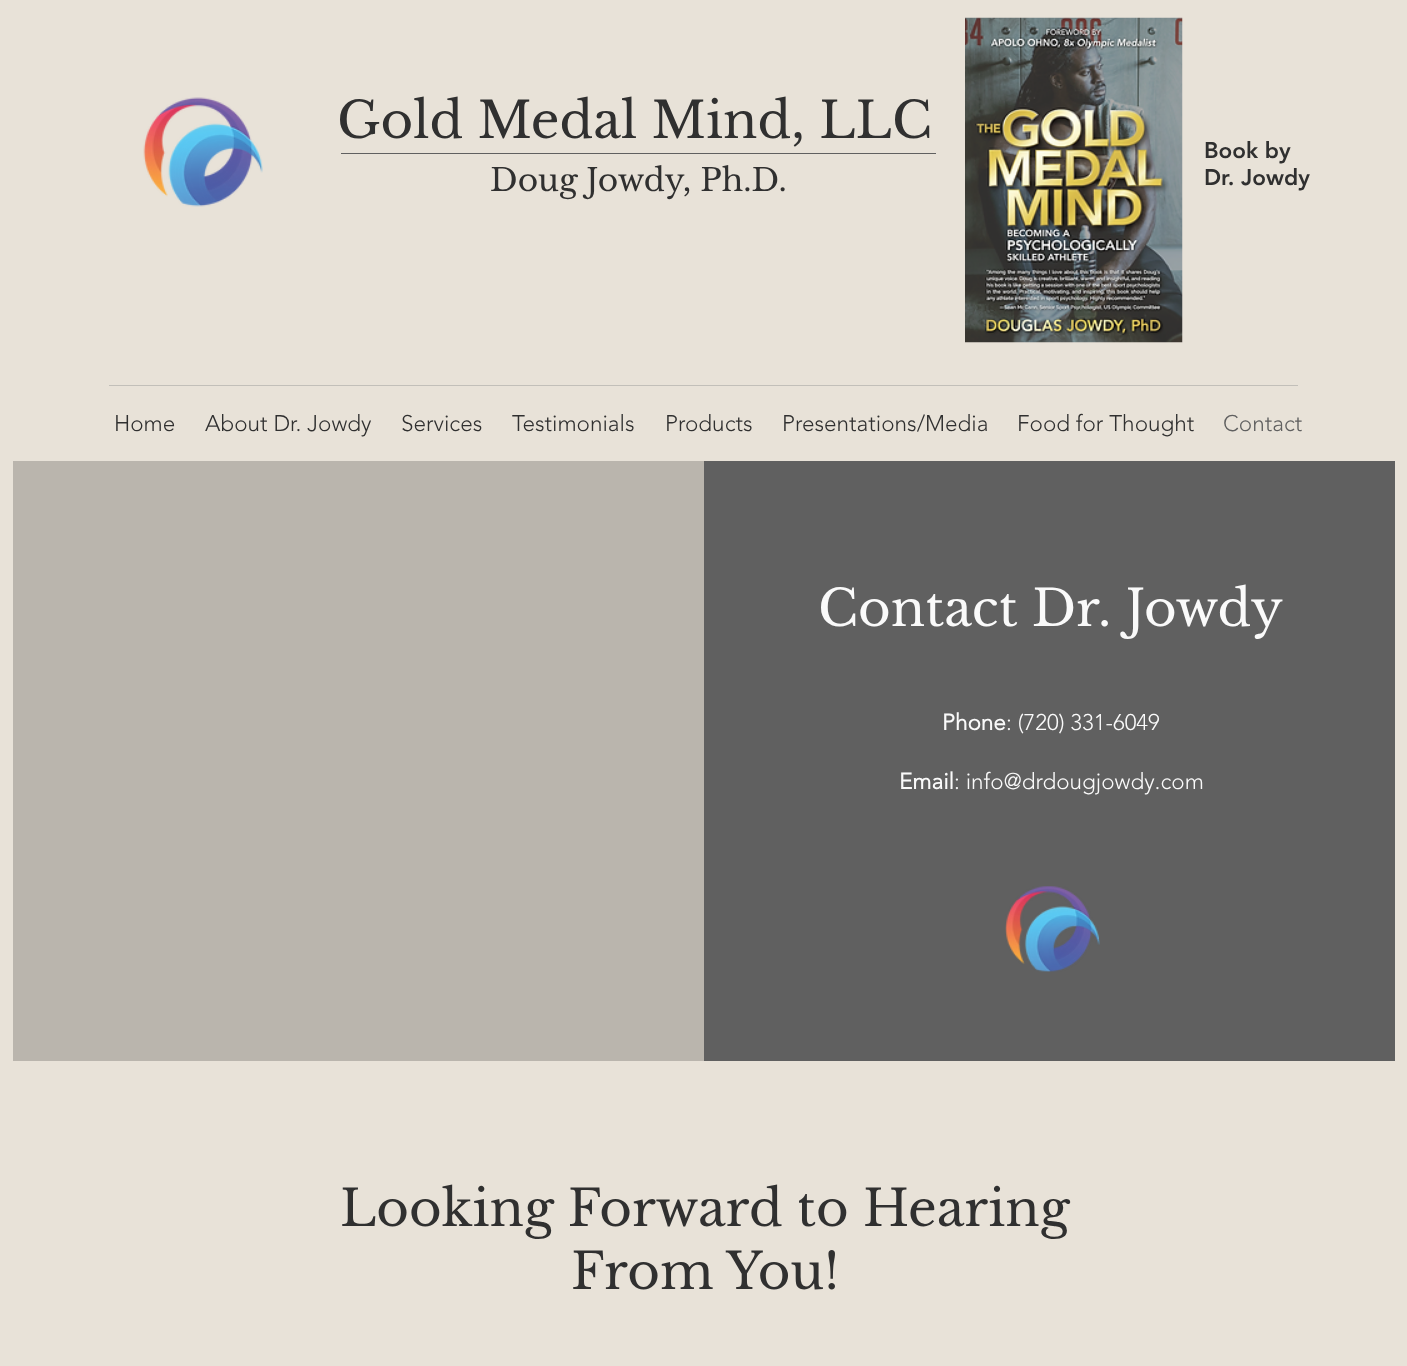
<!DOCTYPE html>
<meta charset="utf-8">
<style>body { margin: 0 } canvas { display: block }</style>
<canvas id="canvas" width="1407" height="1366"></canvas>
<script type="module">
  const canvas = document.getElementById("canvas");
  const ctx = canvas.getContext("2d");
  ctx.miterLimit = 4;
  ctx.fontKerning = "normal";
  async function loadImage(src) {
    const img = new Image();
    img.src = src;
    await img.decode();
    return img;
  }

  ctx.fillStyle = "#e8e2d8";
  ctx.fillRect(0, 0, 1407, 1366);
  ctx.drawImage(await loadImage("img1.png"), 143, 97, 120, 110);
  ctx.font = "50px Libre Baskerville";
  ctx.fillStyle = "#303030";
  ctx.fillText("Gold Medal Mind, LLC", 337, 138);
  ctx.drawImage(await loadImage("img2.png"), 965, 17, 218, 326);
  ctx.font = "900 22.5px 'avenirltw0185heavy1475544'";
  ctx.fillText("Book by", 1204, 158);
  ctx.fillText("Dr. Jowdy", 1204, 185);
  ctx.fillStyle = "#606060";
  ctx.fillRect(341, 153, 595, 1);
  ctx.font = "31.25px Libre Baskerville";
  ctx.fillStyle = "#303030";
  ctx.fillText("Doug Jowdy, Ph.D.", 490, 191);
  ctx.fillStyle = "#c2bfb9";
  ctx.fillRect(109, 385, 1189, 1);
  ctx.font = "300 22.5px 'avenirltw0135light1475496'";
  ctx.fillStyle = "#303030";
  ctx.fillText("Home", 114, 431);
  ctx.fillText("About Dr. Jowdy", 205, 431);
  ctx.fillText("Services", 401, 431);
  ctx.fillText("Testimonials", 512, 431);
  ctx.fillText("Products", 665, 431);
  ctx.fillText("Presentations/Media", 782, 431);
  ctx.fillText("Food for Thought", 1017, 431);
  ctx.fillStyle = "#606060";
  ctx.fillText("Contact", 1223, 431);
  ctx.fillStyle = "#bab5ad";
  ctx.fillRect(13, 461, 691, 600);
  ctx.fillStyle = "#606060";
  ctx.fillRect(704, 461, 691, 600);
  ctx.font = "50px Libre Baskerville";
  ctx.fillStyle = "#fafafa";
  ctx.fillText("Contact Dr. Jowdy", 818, 626);
  ctx.font = "bold 22.5px 'avenirltw0135light1475496'";
  ctx.fillText("Phone", 942, 730);
  ctx.font = "300 22.5px 'avenirltw0135light1475496'";
  ctx.fillText(": (720) 331-6049", 1006, 730);
  ctx.font = "bold 22.5px 'avenirltw0135light1475496'";
  ctx.fillText("Email", 899, 789);
  ctx.font = "300 22.5px 'avenirltw0135light1475496'";
  ctx.fillText(": info@drdougjowdy.com", 954, 789);
  ctx.drawImage(await loadImage("img3.png"), 1005, 886, 95, 86);
  ctx.font = "50px Libre Baskerville";
  ctx.fillStyle = "#303030";
  ctx.fillText("Looking Forward to Hearing", 340, 1226);
  ctx.fillText("From You!", 571, 1289);
</script>
